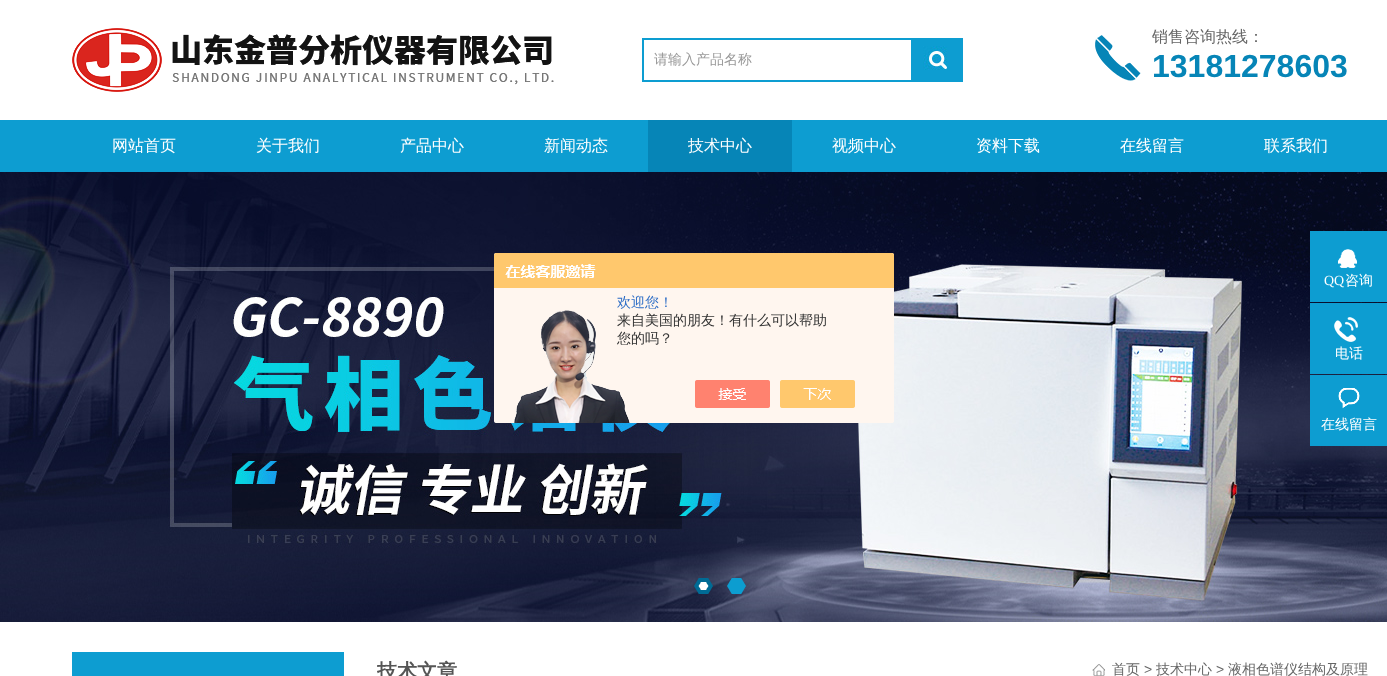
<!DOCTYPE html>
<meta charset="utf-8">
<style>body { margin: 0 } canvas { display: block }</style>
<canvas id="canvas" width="1387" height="676"></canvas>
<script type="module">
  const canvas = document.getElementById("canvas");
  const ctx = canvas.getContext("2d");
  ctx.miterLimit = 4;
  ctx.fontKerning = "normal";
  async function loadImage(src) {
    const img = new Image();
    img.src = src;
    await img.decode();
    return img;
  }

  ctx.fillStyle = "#ffffff";
  ctx.fillRect(0, 0, 1387, 676);
  ctx.drawImage(await loadImage("img1.png"), 72, 28, 482, 64);
  ctx.strokeStyle = "#0d9dd1";
  ctx.lineWidth = 2;
  ctx.strokeRect(643, 39, 269, 42);
  ctx.font = "500 14px WenQuanYi Zen Hei";
  ctx.fillStyle = "#999999";
  ctx.fillText("请输入产品名称", 654, 64);
  ctx.fillStyle = "#0d9dd1";
  ctx.fillRect(913, 38, 50, 44);
  ctx.drawImage(await loadImage("img2.png"), 923, 46, 24, 24);
  ctx.drawImage(await loadImage("img3.png"), 1095, 35, 46, 46);
  ctx.font = "500 16px WenQuanYi Zen Hei";
  ctx.fillStyle = "#666666";
  ctx.fillText("销售咨询热线：", 1152, 42);
  ctx.font = "bold 32px Liberation Sans";
  ctx.fillStyle = "#0685b7";
  ctx.fillText("13181278603", 1152, 77);
  ctx.fillStyle = "#0d9dd1";
  ctx.fillRect(0, 120, 1387, 52);
  ctx.font = "500 16px WenQuanYi Zen Hei";
  ctx.fillStyle = "#ffffff";
  ctx.fillText("网站首页", 112, 151);
  ctx.fillText("关于我们", 256, 151);
  ctx.fillText("产品中心", 400, 151);
  ctx.fillText("新闻动态", 544, 151);
  ctx.fillStyle = "#0685b7";
  ctx.fillRect(648, 120, 144, 52);
  ctx.fillStyle = "#ffffff";
  ctx.fillText("技术中心", 688, 151);
  ctx.fillText("视频中心", 832, 151);
  ctx.fillText("资料下载", 976, 151);
  ctx.fillText("在线留言", 1120, 151);
  ctx.fillText("联系我们", 1264, 151);
  ctx.drawImage(await loadImage("img4.png"), 0, 172, 1387, 450);
  ctx.drawImage(await loadImage("img5.png"), 694, 578, 19, 16);
  ctx.drawImage(await loadImage("img6.png"), 727, 578, 19, 16);
  ctx.drawImage(await loadImage("img7.png"), 494, 253, 400, 170);
  ctx.font = "500 14px WenQuanYi Zen Hei";
  ctx.fillStyle = "#2e6ec6";
  ctx.fillText("欢迎您！", 617, 307);
  ctx.fillStyle = "#333333";
  ctx.fillText("来自美国的朋友！有什么可以帮助", 617, 325);
  ctx.fillText("您的吗？", 617, 343);
  ctx.fillStyle = "#0d9dd1";
  ctx.fillRect(1310, 231, 77, 71);
  ctx.drawImage(await loadImage("img8.png"), 1338, 249, 19, 19);
  ctx.font = "14px Liberation Serif";
  ctx.fillStyle = "#ffffff";
  ctx.fillText("QQ", 1324, 285);
  ctx.font = "500 14px WenQuanYi Zen Hei";
  ctx.fillText("咨询", 1345, 285);
  ctx.fillStyle = "#0d9dd1";
  ctx.fillRect(1310, 303, 77, 71);
  ctx.drawImage(await loadImage("img9.png"), 1334, 317, 24, 25);
  ctx.fillStyle = "#ffffff";
  ctx.fillText("电话", 1335, 358);
  ctx.fillStyle = "#0d9dd1";
  ctx.fillRect(1310, 375, 77, 71);
  ctx.drawImage(await loadImage("img10.png"), 1338, 388, 22, 21);
  ctx.fillStyle = "#ffffff";
  ctx.fillText("在线留言", 1321, 429);
  ctx.fillStyle = "#0d9dd1";
  ctx.fillRect(72, 652, 272, 24);
  ctx.save();
  ctx.beginPath();
  ctx.rect(377, 652, 991, 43);
  ctx.clip();
  ctx.font = "bold 20px WenQuanYi Zen Hei";
  ctx.fillStyle = "#555555";
  ctx.fillText("技术文章", 377, 678);
  ctx.restore();
  ctx.drawImage(await loadImage("img11.png"), 1092, 664, 13, 12);
  ctx.fillStyle = "#666666";
  ctx.fillText("首页", 1112, 674);
  ctx.font = "14px Liberation Sans";
  ctx.fillText(">", 1144, 674);
  ctx.font = "500 14px WenQuanYi Zen Hei";
  ctx.fillText("技术中心", 1156, 674);
  ctx.font = "14px Liberation Sans";
  ctx.fillText(">", 1216, 674);
  ctx.font = "500 14px WenQuanYi Zen Hei";
  ctx.fillText("液相色谱仪结构及原理", 1228, 674);
</script>
